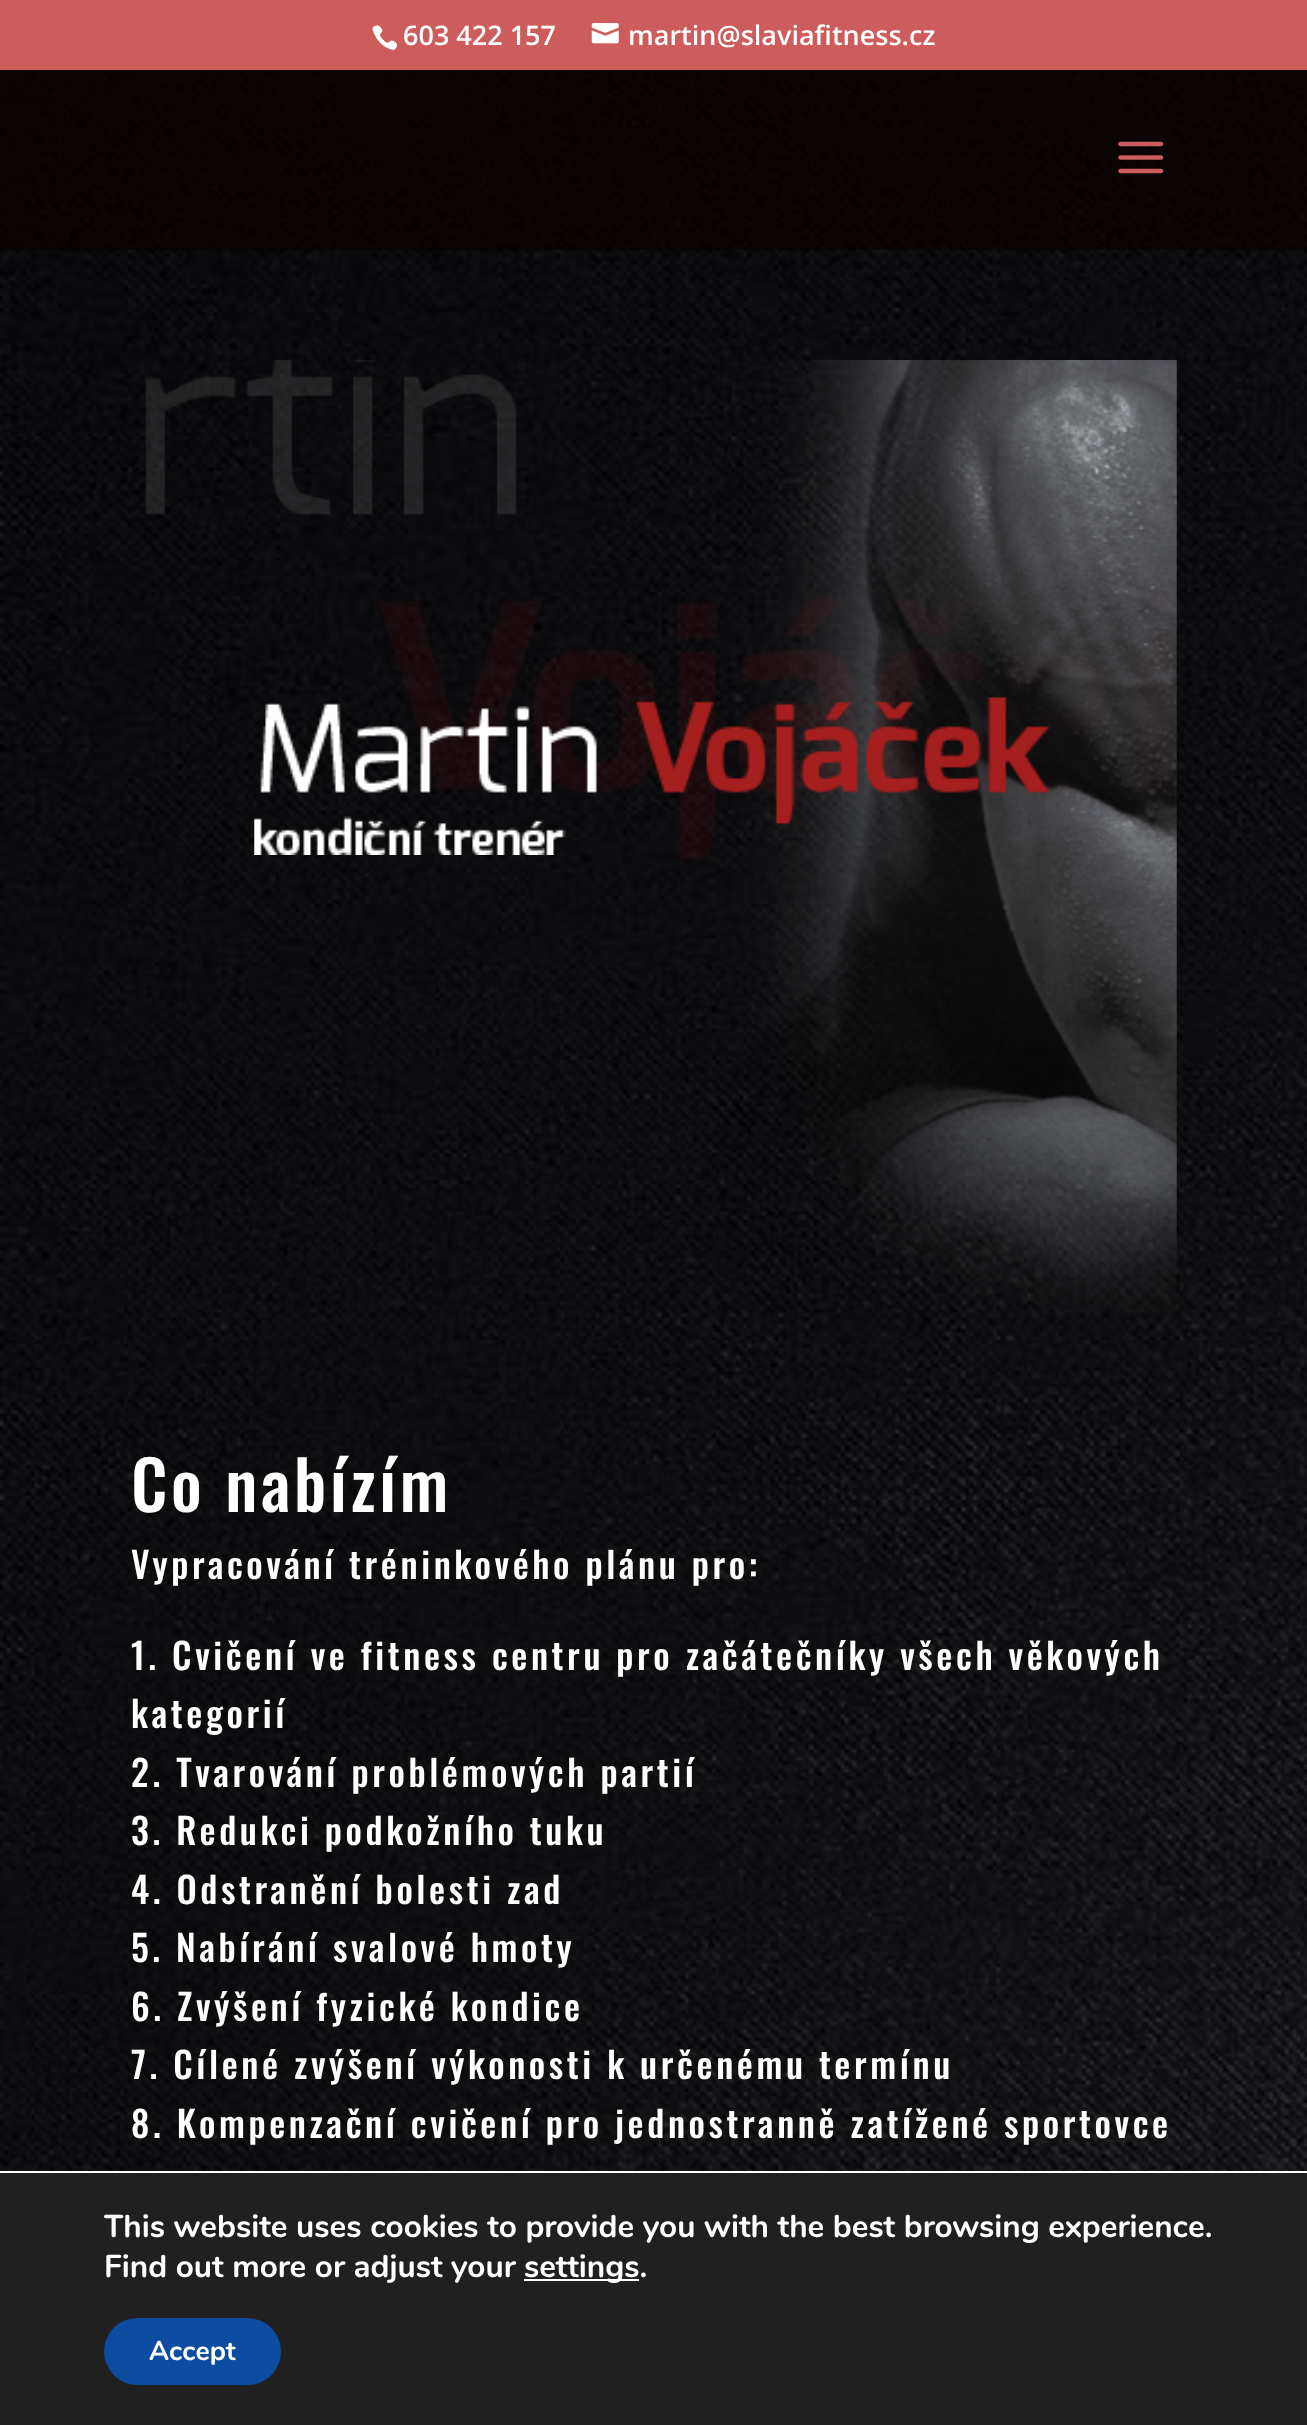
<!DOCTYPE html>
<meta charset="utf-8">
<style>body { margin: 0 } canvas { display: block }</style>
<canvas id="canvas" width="1307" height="2425"></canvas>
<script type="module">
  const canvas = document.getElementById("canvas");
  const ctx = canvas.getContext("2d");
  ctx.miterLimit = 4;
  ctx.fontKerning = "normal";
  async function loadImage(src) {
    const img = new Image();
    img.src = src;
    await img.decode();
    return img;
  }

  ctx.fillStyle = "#ffffff";
  ctx.fillRect(0, 0, 1307, 2425);
  ctx.fillStyle = "#cd5c5c";
  ctx.fillRect(0, 0, 1307, 70);
  ctx.drawImage(await loadImage("img1.png"), 372, 25, 26, 26);
  ctx.font = "600 27px Open Sans";
  ctx.fillStyle = "#ffffff";
  ctx.fillText("603 422 157", 403, 45);
  ctx.drawImage(await loadImage("img2.png"), 591, 23, 28, 21);
  ctx.fillText("martin@slaviafitness.cz", 628, 45);
  ctx.drawImage(await loadImage("img4.png"), 0, 70, 1307, 2101);
  ctx.fillStyle = "rgba(10, 0, 0, 0.61)";
  ctx.fillRect(0, 70, 1307, 180);
  ctx.drawImage(await loadImage("img3.png"), 1118, 141, 46, 33);
  ctx.drawImage(await loadImage("img5.png"), 145, 360, 1032, 953);
  ctx.drawImage(await loadImage("img6.png"), 254, 697, 797, 158);
  ctx.letterSpacing = "3.6px";
  ctx.font = "500 67.5px Oswald";
  ctx.fillStyle = "#ffffff";
  ctx.fillText("Co nabízím", 131, 1512);
  ctx.font = "500 36px Oswald";
  ctx.fillText("Vypracování tréninkového plánu pro:", 131, 1579);
  ctx.fillText("1. Cvičení ve fitness centru pro začátečníky všech věkových", 131, 1670);
  ctx.fillText("kategorií", 131, 1728);
  ctx.fillText("2. Tvarování problémových partií", 131, 1787);
  ctx.fillText("3. Redukci podkožního tuku", 131, 1845);
  ctx.fillText("4. Odstranění bolesti zad", 131, 1904);
  ctx.fillText("5. Nabírání svalové hmoty", 131, 1962);
  ctx.fillText("6. Zvýšení fyzické kondice", 131, 2021);
  ctx.fillText("7. Cílené zvýšení výkonosti k určenému termínu", 131, 2079);
  ctx.fillText("8. Kompenzační cvičení pro jednostranně zatížené sportovce", 131, 2138);
  ctx.fillStyle = "#202020";
  ctx.fillRect(0, 2173, 1307, 252);
  ctx.letterSpacing = "0px";
  ctx.font = "bold 31.5px Nunito";
  ctx.fillStyle = "#ffffff";
  ctx.fillText("This website uses cookies to provide you with the best browsing experience.", 104, 2237);
  ctx.fillText("Find out more or adjust your", 104, 2277);
  ctx.fillRect(524, 2279, 115, 2);
  ctx.fillText("settings.", 524, 2277);
  ctx.fillStyle = "#0c4da2";
  ctx.beginPath();
  ctx.roundRect(104, 2318, 177, 67, 33.5);
  ctx.fill();
  ctx.font = "bold 27px Nunito";
  ctx.fillStyle = "#ffffff";
  ctx.fillText("Accept", 149, 2360);
</script>
